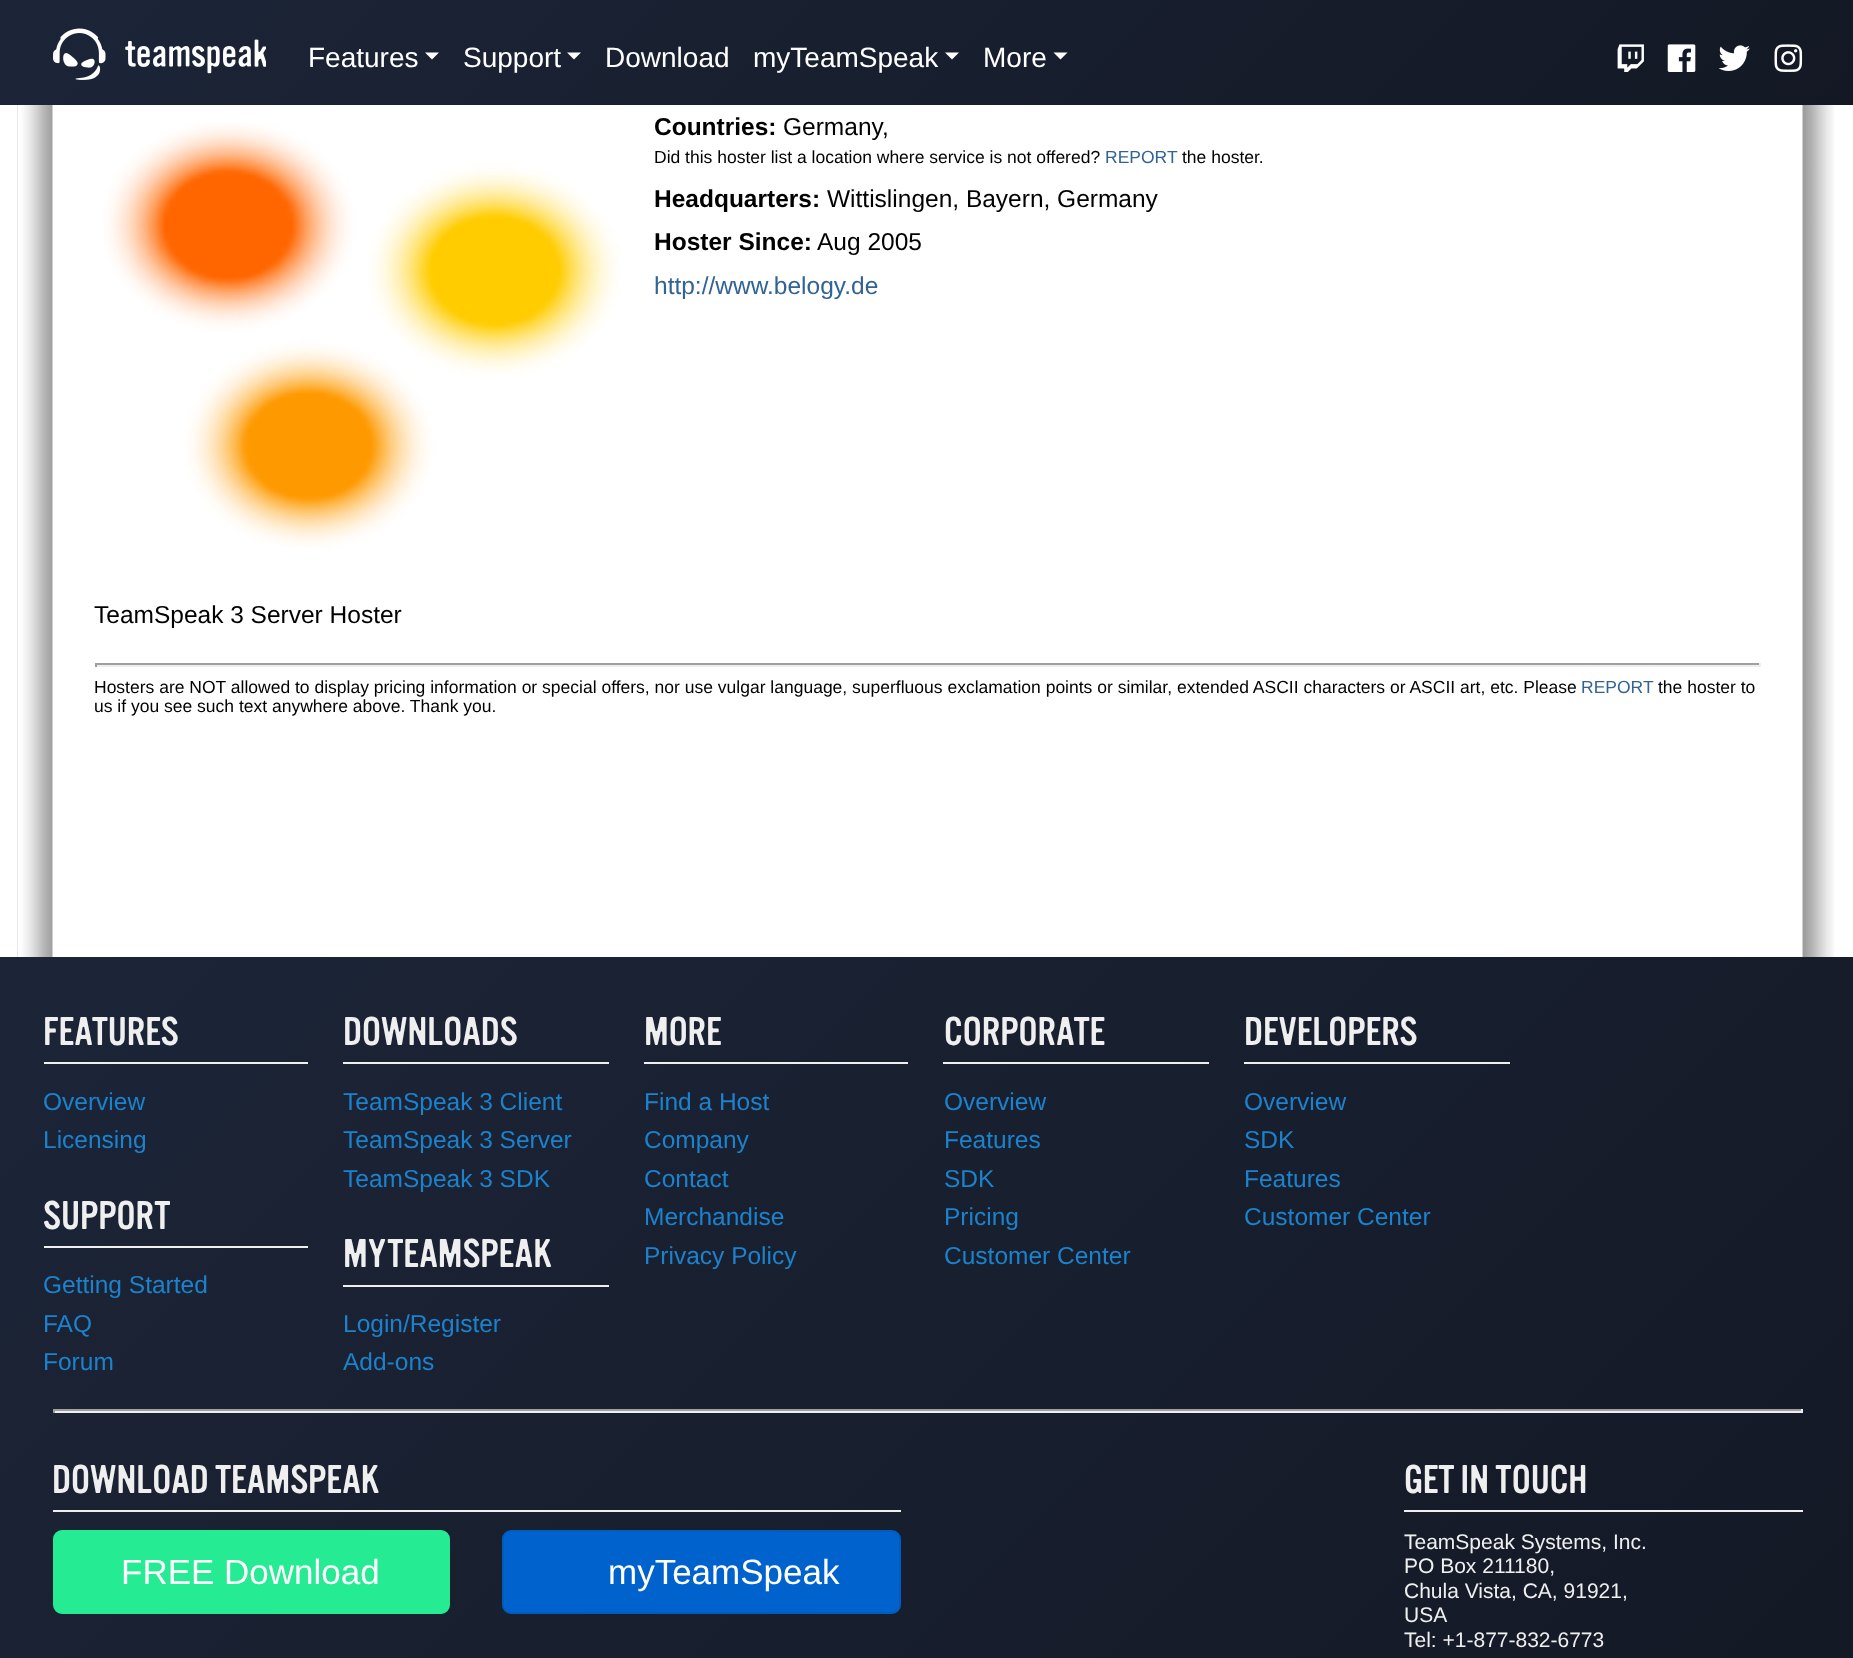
<!DOCTYPE html>
<meta charset="utf-8">
<style>body { margin: 0 } canvas { display: block }</style>
<canvas id="canvas" width="1853" height="1658"></canvas>
<script type="module">
  const canvas = document.getElementById("canvas");
  const ctx = canvas.getContext("2d");
  ctx.miterLimit = 4;
  ctx.fontKerning = "normal";
  async function loadImage(src) {
    const img = new Image();
    img.src = src;
    await img.decode();
    return img;
  }
  let gradient;

  ctx.fillStyle = "#ffffff";
  ctx.fillRect(0, 0, 1853, 1658);
  gradient = ctx.createLinearGradient(437, -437, 1416, 542);
  gradient.addColorStop(0, "#1c2538");
  gradient.addColorStop(1, "#131824");
  ctx.fillStyle = gradient;
  ctx.fillRect(0, 0, 1853, 105);
  ctx.drawImage(await loadImage("img1.png"), 53, 28, 213, 52);
  ctx.font = "28px Liberation Sans";
  ctx.fillStyle = "#ffffff";
  ctx.fillText("Features", 308, 67);
  ctx.beginPath();
  ctx.moveTo(425, 52.5);
  ctx.lineTo(439, 52.5);
  ctx.lineTo(432, 59.5);
  ctx.closePath();
  ctx.fill();
  ctx.fillText("Support", 463, 67);
  ctx.beginPath();
  ctx.moveTo(567, 52.5);
  ctx.lineTo(581, 52.5);
  ctx.lineTo(574, 59.5);
  ctx.closePath();
  ctx.fill();
  ctx.fillText("Download", 605, 67);
  ctx.fillText("myTeamSpeak", 753, 67);
  ctx.beginPath();
  ctx.moveTo(945, 52.5);
  ctx.lineTo(959, 52.5);
  ctx.lineTo(952, 59.5);
  ctx.closePath();
  ctx.fill();
  ctx.fillText("More", 983, 67);
  ctx.beginPath();
  ctx.moveTo(1053.5, 52.5);
  ctx.lineTo(1067.5, 52.5);
  ctx.lineTo(1060.5, 59.5);
  ctx.closePath();
  ctx.fill();
  ctx.drawImage(await loadImage("img2.png"), 1617, 44, 27, 28);
  ctx.drawImage(await loadImage("img3.png"), 1667, 44, 29, 28);
  ctx.drawImage(await loadImage("img4.png"), 1718, 45, 32, 26);
  ctx.drawImage(await loadImage("img5.png"), 1774, 44, 29, 28);
  ctx.drawImage(await loadImage("img6.png"), 17, 105, 36, 852);
  ctx.drawImage(await loadImage("img7.png"), 1802, 105, 32, 852);
  ctx.drawImage(await loadImage("img8.png"), 104, 122, 515, 426);
  ctx.font = "bold 24.5px Liberation Sans";
  ctx.fillStyle = "#000000";
  ctx.fillText("Countries:", 654, 135);
  ctx.font = "24.5px Liberation Sans";
  ctx.fillText("Germany,", 783, 135);
  ctx.font = "17.5px Liberation Sans";
  ctx.fillText("Did this hoster list a location where service is not offered?", 654, 163);
  ctx.fillStyle = "#316394";
  ctx.fillText("REPORT", 1105, 163);
  ctx.fillStyle = "#000000";
  ctx.fillText("the hoster.", 1182, 163);
  ctx.font = "bold 24.5px Liberation Sans";
  ctx.fillText("Headquarters:", 654, 207);
  ctx.font = "24.5px Liberation Sans";
  ctx.fillText("Wittislingen, Bayern, Germany", 827, 207);
  ctx.font = "bold 24.5px Liberation Sans";
  ctx.fillText("Hoster Since:", 654, 250);
  ctx.font = "24.5px Liberation Sans";
  ctx.fillText("Aug 2005", 817, 250);
  ctx.fillStyle = "#316394";
  ctx.fillText("http://www.belogy.de", 654, 294);
  ctx.fillStyle = "#000000";
  ctx.fillText("TeamSpeak 3 Server Hoster", 94, 623);
  ctx.fillStyle = "#9f9f9f";
  ctx.fillRect(95, 663, 1666, 2);
  ctx.fillStyle = "#eeeeee";
  ctx.fillRect(1759, 663, 2, 4);
  ctx.fillRect(95, 665, 1666, 2);
  ctx.fillStyle = "#9f9f9f";
  ctx.fillRect(95, 663, 2, 4);
  ctx.font = "17.5px Liberation Sans";
  ctx.fillStyle = "#000000";
  ctx.fillText("Hosters are NOT allowed to display pricing information or special offers, nor use vulgar language, superfluous exclamation points or similar, extended ASCII characters or ASCII art, etc. Please", 94, 693);
  ctx.fillStyle = "#316394";
  ctx.fillText("REPORT", 1581, 693);
  ctx.fillStyle = "#000000";
  ctx.fillText("the hoster to", 1658, 693);
  ctx.fillText("us if you see such text anywhere above. Thank you.", 94, 712);
  gradient = ctx.createLinearGradient(256, 702, 1598, 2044);
  gradient.addColorStop(0, "#1c2538");
  gradient.addColorStop(1, "#131824");
  ctx.fillStyle = gradient;
  ctx.fillRect(0, 957, 1853, 701);
  ctx.fillStyle = "#efefef";
  ctx.fillRect(44, 1062, 264, 2);
  ctx.font = "42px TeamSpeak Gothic";
  ctx.fillText("FEATURES", 43, 1045);
  ctx.font = "24.5px Liberation Sans";
  ctx.fillStyle = "#1c82cc";
  ctx.fillText("Overview", 43, 1110);
  ctx.fillText("Licensing", 43, 1148);
  ctx.fillStyle = "#efefef";
  ctx.fillRect(44, 1246, 264, 2);
  ctx.font = "42px TeamSpeak Gothic";
  ctx.fillText("SUPPORT", 43, 1229);
  ctx.font = "24.5px Liberation Sans";
  ctx.fillStyle = "#1c82cc";
  ctx.fillText("Getting Started", 43, 1293);
  ctx.fillText("FAQ", 43, 1332);
  ctx.fillText("Forum", 43, 1370);
  ctx.fillStyle = "#efefef";
  ctx.fillRect(343, 1062, 266, 2);
  ctx.font = "42px TeamSpeak Gothic";
  ctx.fillText("DOWNLOADS", 343, 1045);
  ctx.font = "24.5px Liberation Sans";
  ctx.fillStyle = "#1c82cc";
  ctx.fillText("TeamSpeak 3 Client", 343, 1110);
  ctx.fillText("TeamSpeak 3 Server", 343, 1148);
  ctx.fillText("TeamSpeak 3 SDK", 343, 1187);
  ctx.fillStyle = "#efefef";
  ctx.fillRect(343, 1285, 266, 2);
  ctx.font = "42px TeamSpeak Gothic";
  ctx.fillText("MYTEAMSPEAK", 343, 1267);
  ctx.font = "24.5px Liberation Sans";
  ctx.fillStyle = "#1c82cc";
  ctx.fillText("Login/Register", 343, 1332);
  ctx.fillText("Add-ons", 343, 1370);
  ctx.fillStyle = "#efefef";
  ctx.fillRect(644, 1062, 264, 2);
  ctx.font = "42px TeamSpeak Gothic";
  ctx.fillText("MORE", 644, 1045);
  ctx.font = "24.5px Liberation Sans";
  ctx.fillStyle = "#1c82cc";
  ctx.fillText("Find a Host", 644, 1110);
  ctx.fillText("Company", 644, 1148);
  ctx.fillText("Contact", 644, 1187);
  ctx.fillText("Merchandise", 644, 1225);
  ctx.fillText("Privacy Policy", 644, 1264);
  ctx.fillStyle = "#efefef";
  ctx.fillRect(943, 1062, 266, 2);
  ctx.font = "42px TeamSpeak Gothic";
  ctx.fillText("CORPORATE", 944, 1045);
  ctx.font = "24.5px Liberation Sans";
  ctx.fillStyle = "#1c82cc";
  ctx.fillText("Overview", 944, 1110);
  ctx.fillText("Features", 944, 1148);
  ctx.fillText("SDK", 944, 1187);
  ctx.fillText("Pricing", 944, 1225);
  ctx.fillText("Customer Center", 944, 1264);
  ctx.fillStyle = "#efefef";
  ctx.fillRect(1244, 1062, 266, 2);
  ctx.font = "42px TeamSpeak Gothic";
  ctx.fillText("DEVELOPERS", 1244, 1045);
  ctx.font = "24.5px Liberation Sans";
  ctx.fillStyle = "#1c82cc";
  ctx.fillText("Overview", 1244, 1110);
  ctx.fillText("SDK", 1244, 1148);
  ctx.fillText("Features", 1244, 1187);
  ctx.fillText("Customer Center", 1244, 1225);
  ctx.fillStyle = "#9f9f9f";
  ctx.fillRect(53, 1409, 1750, 2);
  ctx.fillStyle = "#eeeeee";
  ctx.fillRect(1801, 1409, 2, 4);
  ctx.fillRect(53, 1411, 1750, 2);
  ctx.fillStyle = "#9f9f9f";
  ctx.fillRect(53, 1409, 2, 4);
  ctx.fillStyle = "#efefef";
  ctx.fillRect(53, 1510, 848, 2);
  ctx.font = "42px TeamSpeak Gothic";
  ctx.fillText("DOWNLOAD TEAMSPEAK", 52, 1493);
  ctx.fillStyle = "#25eb93";
  ctx.beginPath();
  ctx.roundRect(54, 1531, 395, 82, 8);
  ctx.fill();
  ctx.strokeStyle = "#25eb93";
  ctx.lineWidth = 2;
  ctx.stroke();
  ctx.font = "35px Liberation Sans";
  ctx.fillStyle = "#ffffff";
  ctx.fillText("FREE Download", 121, 1584);
  ctx.fillStyle = "#0062cc";
  ctx.beginPath();
  ctx.roundRect(503, 1531, 397, 82, 8);
  ctx.fill();
  ctx.strokeStyle = "#005cbf";
  ctx.stroke();
  ctx.fillStyle = "#ffffff";
  ctx.fillText("myTeamSpeak", 608, 1584);
  ctx.fillStyle = "#efefef";
  ctx.fillRect(1404, 1510, 399, 2);
  ctx.font = "42px TeamSpeak Gothic";
  ctx.fillText("GET IN TOUCH", 1404, 1493);
  ctx.font = "21px Liberation Sans";
  ctx.fillText("TeamSpeak Systems, Inc.", 1404, 1549);
  ctx.fillText("PO Box 211180,", 1404, 1573);
  ctx.fillText("Chula Vista, CA, 91921,", 1404, 1598);
  ctx.fillText("USA", 1404, 1622);
  ctx.fillText("Tel: +1-877-832-6773", 1404, 1647);
</script>
